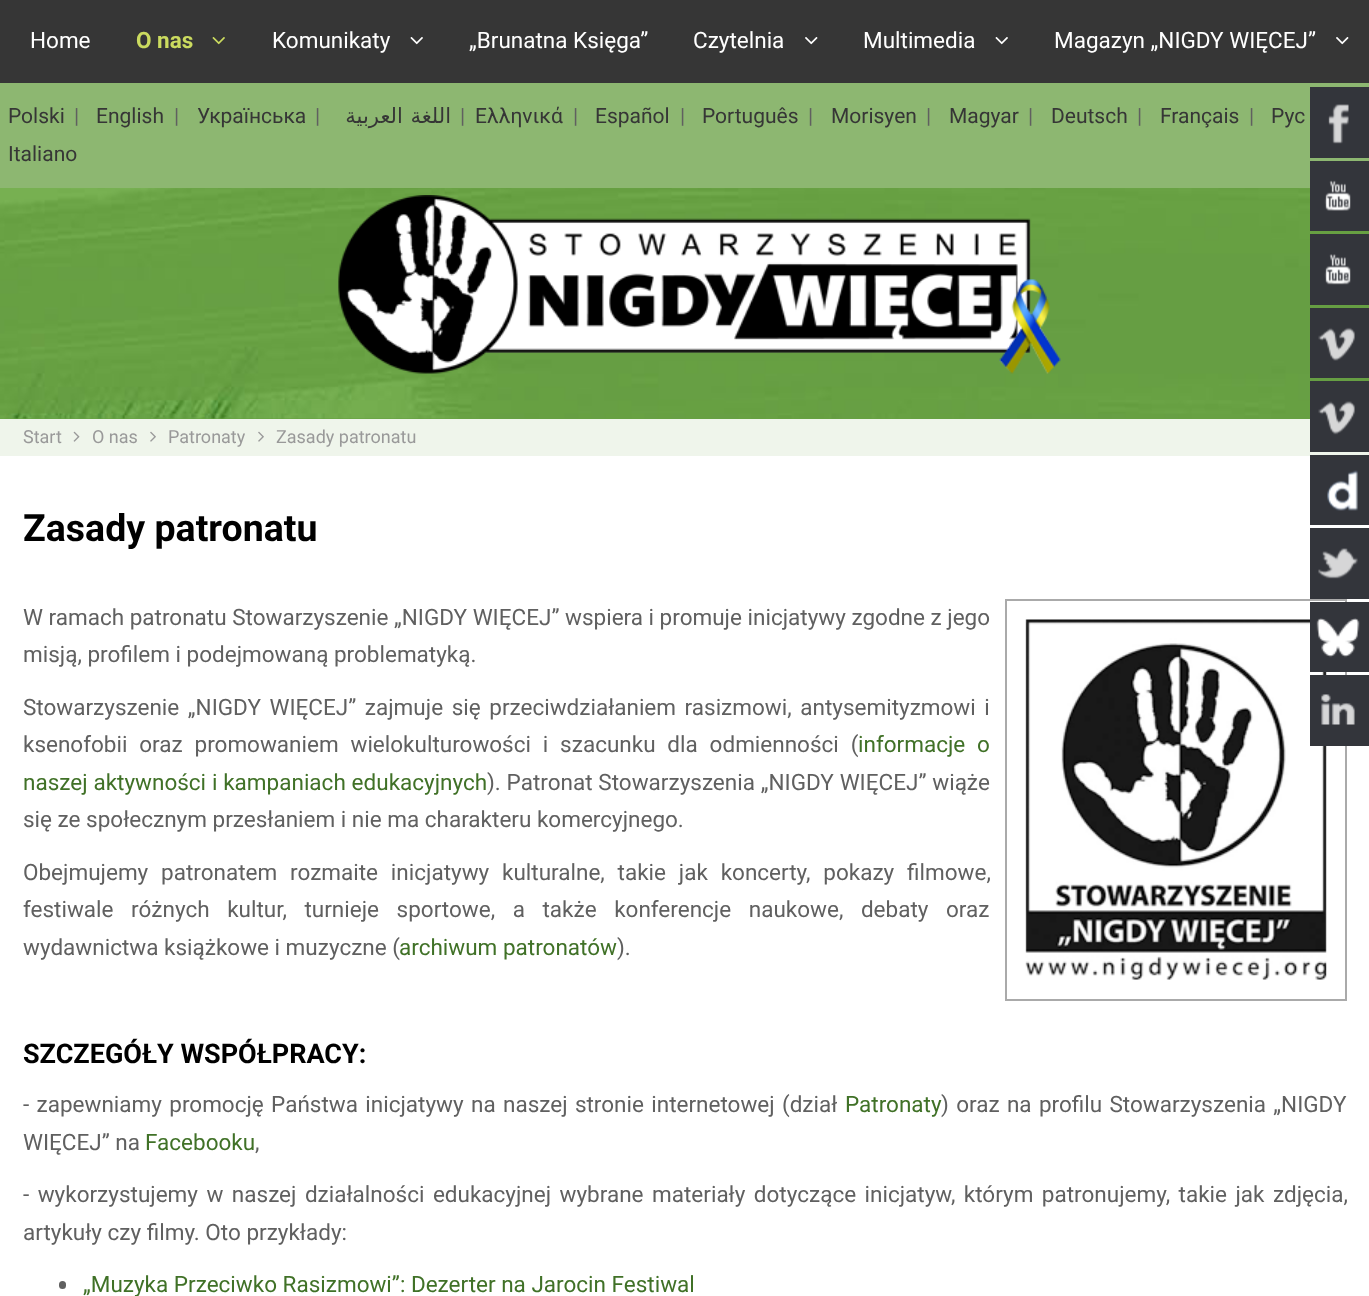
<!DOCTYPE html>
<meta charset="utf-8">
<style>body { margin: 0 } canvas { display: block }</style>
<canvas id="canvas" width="1369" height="1296"></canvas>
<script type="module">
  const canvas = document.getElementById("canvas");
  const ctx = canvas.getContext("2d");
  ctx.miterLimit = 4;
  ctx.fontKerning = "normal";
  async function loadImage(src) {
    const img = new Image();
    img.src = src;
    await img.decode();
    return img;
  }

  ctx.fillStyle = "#ffffff";
  ctx.fillRect(0, 0, 1369, 1296);
  ctx.fillStyle = "#363636";
  ctx.fillRect(0, 0, 1369, 83);
  ctx.font = "22.5px Roboto";
  ctx.fillStyle = "#ffffff";
  ctx.fillText("Home", 30, 48);
  ctx.font = "bold 22.5px Roboto";
  ctx.fillStyle = "#cbdb5f";
  ctx.fillText("O nas", 136, 48);
  ctx.drawImage(await loadImage("img1.png"), 212, 37, 13, 8);
  ctx.font = "22.5px Roboto";
  ctx.fillStyle = "#ffffff";
  ctx.fillText("Komunikaty", 272, 48);
  ctx.drawImage(await loadImage("img2.png"), 410, 37, 13, 8);
  ctx.fillText("„Brunatna Księga”", 469, 48);
  ctx.fillText("Czytelnia", 693, 48);
  ctx.drawImage(await loadImage("img3.png"), 805, 37, 13, 8);
  ctx.fillText("Multimedia", 863, 48);
  ctx.drawImage(await loadImage("img2.png"), 995, 37, 13, 8);
  ctx.fillText("Magazyn „NIGDY WIĘCEJ”", 1054, 48);
  ctx.drawImage(await loadImage("img3.png"), 1336, 37, 13, 8);
  ctx.fillStyle = "#8db771";
  ctx.fillRect(0, 83, 1369, 105);
  ctx.font = "21px Roboto";
  ctx.fillStyle = "#363636";
  ctx.fillText("Polski", 8, 123);
  ctx.fillStyle = "#606060";
  ctx.fillText("|", 74, 123);
  ctx.fillStyle = "#363636";
  ctx.fillText("English", 96, 123);
  ctx.fillStyle = "#606060";
  ctx.fillText("|", 174, 123);
  ctx.fillStyle = "#363636";
  ctx.fillText("Українська", 197, 123);
  ctx.fillStyle = "#606060";
  ctx.fillText("|", 315, 123);
  ctx.wordSpacing = "1px";
  ctx.direction = "rtl";
  ctx.font = "21px DejaVu Sans";
  ctx.fillStyle = "#363636";
  ctx.fillText("اللغة العربية", 451, 123);
  ctx.wordSpacing = "0px";
  ctx.direction = "ltr";
  ctx.font = "21px Roboto";
  ctx.fillStyle = "#606060";
  ctx.fillText("|", 460, 123);
  ctx.fillStyle = "#363636";
  ctx.fillText("Ελληνικά", 475, 123);
  ctx.fillStyle = "#606060";
  ctx.fillText("|", 573, 123);
  ctx.fillStyle = "#363636";
  ctx.fillText("Español", 595, 123);
  ctx.fillStyle = "#606060";
  ctx.fillText("|", 680, 123);
  ctx.fillStyle = "#363636";
  ctx.fillText("Português", 702, 123);
  ctx.fillStyle = "#606060";
  ctx.fillText("|", 808, 123);
  ctx.fillStyle = "#363636";
  ctx.fillText("Morisyen", 831, 123);
  ctx.fillStyle = "#606060";
  ctx.fillText("|", 926, 123);
  ctx.fillStyle = "#363636";
  ctx.fillText("Magyar", 949, 123);
  ctx.fillStyle = "#606060";
  ctx.fillText("|", 1028, 123);
  ctx.fillStyle = "#363636";
  ctx.fillText("Deutsch", 1051, 123);
  ctx.fillStyle = "#606060";
  ctx.fillText("|", 1137, 123);
  ctx.fillStyle = "#363636";
  ctx.fillText("Français", 1160, 123);
  ctx.fillStyle = "#606060";
  ctx.fillText("|", 1249, 123);
  ctx.fillStyle = "#363636";
  ctx.fillText("Рус", 1271, 123);
  ctx.fillText("Italiano", 8, 161);
  ctx.fillStyle = "#33353b";
  ctx.fillRect(1310, 87, 59, 71);
  ctx.drawImage(await loadImage("img4.png"), 1328, 104, 21, 40);
  ctx.fillStyle = "#67a042";
  ctx.fillRect(0, 418, 1310, 1);
  ctx.drawImage(await loadImage("img13.png"), 0, 188, 1369, 231);
  ctx.fillStyle = "#33353b";
  ctx.fillRect(1310, 161, 59, 70);
  ctx.drawImage(await loadImage("img5.png"), 1324, 180, 27, 31);
  ctx.fillRect(1310, 234, 59, 71);
  ctx.drawImage(await loadImage("img6.png"), 1324, 254, 27, 31);
  ctx.fillRect(1310, 308, 59, 70);
  ctx.drawImage(await loadImage("img7.png"), 1318, 327, 37, 34);
  ctx.fillStyle = "#eff5eb";
  ctx.fillRect(0, 419, 1369, 37);
  ctx.fillStyle = "#33353b";
  ctx.fillRect(1310, 381, 59, 71);
  ctx.drawImage(await loadImage("img8.png"), 1318, 401, 37, 34);
  ctx.fillRect(1310, 455, 59, 70);
  ctx.drawImage(await loadImage("img9.png"), 1327, 470, 31, 41);
  ctx.fillRect(1310, 528, 59, 71);
  ctx.drawImage(await loadImage("img10.png"), 1318, 548, 40, 31);
  ctx.strokeStyle = "#aaaaaa";
  ctx.lineWidth = 2;
  ctx.strokeRect(1006, 600, 340, 400);
  ctx.drawImage(await loadImage("img17.png"), 1025, 619, 302, 361);
  ctx.fillRect(1310, 602, 59, 70);
  ctx.drawImage(await loadImage("img11.png"), 1316, 618, 44, 40);
  ctx.fillRect(1310, 675, 59, 71);
  ctx.drawImage(await loadImage("img12.png"), 1321, 694, 34, 31);
  ctx.drawImage(await loadImage("img14.png"), 338, 195, 723, 179);
  ctx.font = "18px Roboto";
  ctx.fillStyle = "#999999";
  ctx.fillText("Start", 23, 443);
  ctx.drawImage(await loadImage("img15.png"), 73, 431, 7, 11);
  ctx.fillText("O nas", 92, 443);
  ctx.drawImage(await loadImage("img16.png"), 150, 431, 6, 11);
  ctx.fillText("Patronaty", 168, 443);
  ctx.drawImage(await loadImage("img16.png"), 258, 431, 6, 11);
  ctx.fillText("Zasady patronatu", 276, 443);
  ctx.font = "bold 37.5px Roboto";
  ctx.fillStyle = "#000000";
  ctx.fillText("Zasady patronatu", 23, 541);
  ctx.font = "22.5px Roboto";
  ctx.fillStyle = "#606060";
  ctx.fillText("W ramach patronatu Stowarzyszenie „NIGDY WIĘCEJ” wspiera i promuje inicjatywy zgodne z jego", 23, 625);
  ctx.fillText("misją, profilem i podejmowaną problematyką.", 23, 662);
  ctx.wordSpacing = "3px";
  ctx.fillText("Stowarzyszenie „NIGDY WIĘCEJ” zajmuje się przeciwdziałaniem rasizmowi, antysemityzmowi i", 23, 715);
  ctx.wordSpacing = "6.25px";
  ctx.fillText("ksenofobii oraz promowaniem wielokulturowości i szacunku dla odmienności (", 23, 752);
  ctx.fillStyle = "#407127";
  ctx.fillText("informacje o", 858, 752);
  ctx.wordSpacing = "0.25px";
  ctx.fillText("naszej aktywności i kampaniach edukacyjnych", 23, 790);
  ctx.fillStyle = "#606060";
  ctx.fillText("). Patronat Stowarzyszenia „NIGDY WIĘCEJ” wiąże", 487, 790);
  ctx.wordSpacing = "0px";
  ctx.fillText("się ze społecznym przesłaniem i nie ma charakteru komercyjnego.", 23, 827);
  ctx.wordSpacing = "7.25px";
  ctx.fillText("Obejmujemy patronatem rozmaite inicjatywy kulturalne, takie jak koncerty, pokazy filmowe,", 23, 880);
  ctx.wordSpacing = "12px";
  ctx.fillText("festiwale różnych kultur, turnieje sportowe, a także konferencje naukowe, debaty oraz", 23, 917);
  ctx.wordSpacing = "0px";
  ctx.fillText("wydawnictwa książkowe i muzyczne (", 23, 955);
  ctx.fillStyle = "#407127";
  ctx.fillText("archiwum patronatów", 399, 955);
  ctx.fillStyle = "#606060";
  ctx.fillText(").", 617, 955);
  ctx.font = "bold 27px Roboto";
  ctx.fillStyle = "#000000";
  ctx.fillText("SZCZEGÓŁY WSPÓŁPRACY:", 23, 1063);
  ctx.wordSpacing = "1.75px";
  ctx.font = "22.5px Roboto";
  ctx.fillStyle = "#606060";
  ctx.fillText("- zapewniamy promocję Państwa inicjatywy na naszej stronie internetowej (dział", 23, 1112);
  ctx.wordSpacing = "0px";
  ctx.fillStyle = "#407127";
  ctx.fillText("Patronaty", 845, 1112);
  ctx.wordSpacing = "1.75px";
  ctx.fillStyle = "#606060";
  ctx.fillText(") oraz na profilu Stowarzyszenia „NIGDY", 941, 1112);
  ctx.wordSpacing = "0px";
  ctx.fillText("WIĘCEJ” na", 23, 1150);
  ctx.fillStyle = "#407127";
  ctx.fillText("Facebooku", 145, 1150);
  ctx.fillStyle = "#606060";
  ctx.fillText(",", 255, 1150);
  ctx.wordSpacing = "2.9px";
  ctx.fillText("- wykorzystujemy w naszej działalności edukacyjnej wybrane materiały dotyczące inicjatyw, którym patronujemy, takie jak zdjęcia,", 23, 1202);
  ctx.wordSpacing = "0px";
  ctx.fillText("artykuły czy filmy. Oto przykłady:", 23, 1240);
  ctx.beginPath();
  ctx.roundRect(59, 1281, 7, 8, 3.5);
  ctx.fill();
  ctx.fillStyle = "#407127";
  ctx.fillText("„Muzyka Przeciwko Rasizmowi”: Dezerter na Jarocin Festiwal", 83, 1292);
</script>
